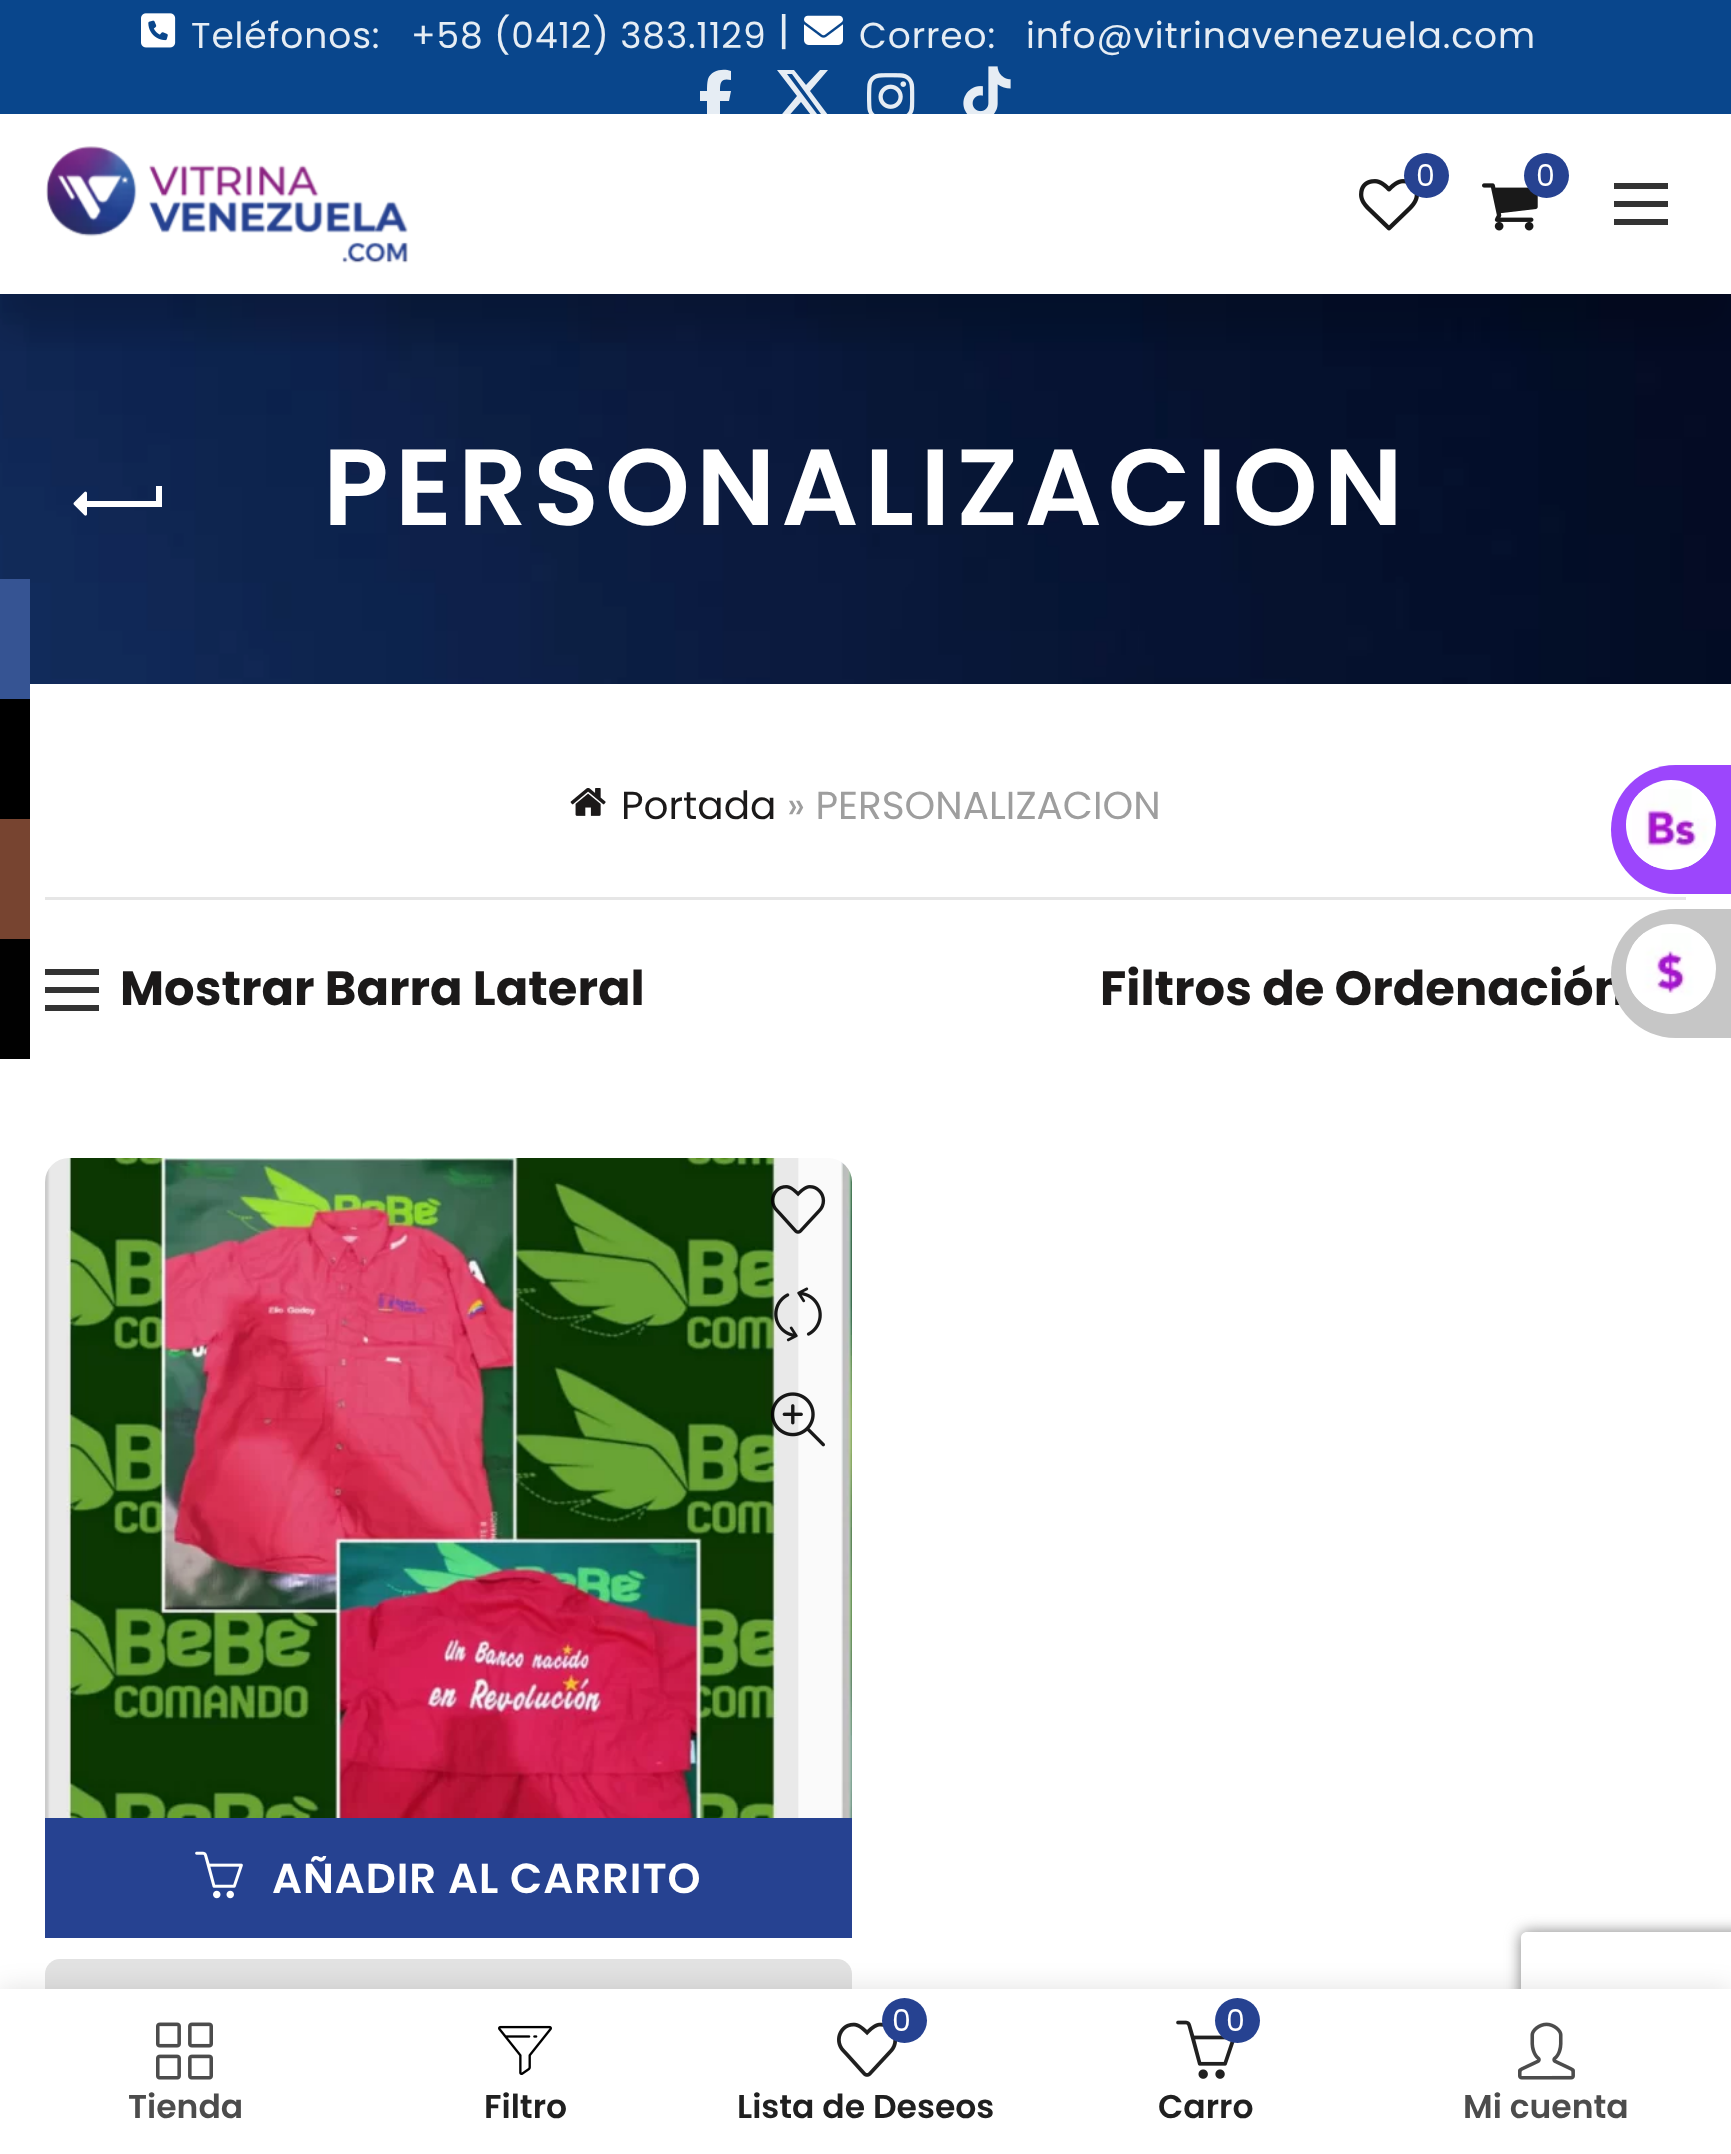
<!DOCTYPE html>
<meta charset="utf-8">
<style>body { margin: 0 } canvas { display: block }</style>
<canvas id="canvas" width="1731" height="2154"></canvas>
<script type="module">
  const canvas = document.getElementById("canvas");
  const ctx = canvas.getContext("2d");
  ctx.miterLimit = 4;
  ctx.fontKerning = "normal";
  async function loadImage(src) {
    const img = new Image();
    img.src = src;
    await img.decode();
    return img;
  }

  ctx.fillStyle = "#ffffff";
  ctx.fillRect(0, 0, 1731, 2154);
  ctx.drawImage(await loadImage("img8.png"), 0, 294, 1731, 390);
  ctx.fillStyle = "#365493";
  ctx.fillRect(0, 579, 30, 120);
  ctx.fillStyle = "#000000";
  ctx.fillRect(0, 699, 30, 120);
  ctx.fillStyle = "#774430";
  ctx.fillRect(0, 819, 30, 120);
  ctx.fillStyle = "#010101";
  ctx.fillRect(0, 939, 30, 120);
  ctx.save();
  ctx.beginPath();
  ctx.rect(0, 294, 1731, 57);
  ctx.clip();
  ctx.fillStyle = "rgba(0, 0, 0, 0.16)";
  ctx.filter = "blur(18px)";
  ctx.beginPath();
  ctx.rect(0, 150, 1731, 180);
  ctx.fill();
  ctx.filter = "none";
  ctx.restore();
  ctx.fillStyle = "#09468c";
  ctx.fillRect(0, 0, 1731, 114);
  ctx.drawImage(await loadImage("img1.png"), 141, 13, 35, 35);
  ctx.letterSpacing = "0.9px";
  ctx.font = "36px Poppins";
  ctx.fillStyle = "#e6edf4";
  ctx.fillText("Teléfonos:", 191, 48);
  ctx.fillText("+58 (0412) 383.1129", 411, 48);
  ctx.font = "39px Poppins";
  ctx.fillText("|", 778, 45);
  ctx.drawImage(await loadImage("img2.png"), 804, 15, 39, 30);
  ctx.font = "36px Poppins";
  ctx.fillText("Correo:", 859, 48);
  ctx.fillText("info@vitrinavenezuela.com", 1026, 48);
  ctx.fillStyle = "rgba(255, 255, 255, 0.9)";
  ctx.beginPath();
  ctx.moveTo(707, 101);
  ctx.lineTo(707, 124);
  ctx.lineTo(707, 101);
  ctx.lineTo(707, 124);
  ctx.lineTo(720, 124);
  ctx.lineTo(720, 101);
  ctx.lineTo(729, 101);
  ctx.lineTo(731, 91);
  ctx.lineTo(720, 91);
  ctx.bezierCurveTo(720, 82, 721, 78, 731, 80);
  ctx.lineTo(731, 71);
  ctx.bezierCurveTo(723, 68, 711, 70, 708, 79);
  ctx.bezierCurveTo(707, 83, 707, 87, 707, 91);
  ctx.lineTo(700, 91);
  ctx.lineTo(700, 101);
  ctx.closePath();
  ctx.fill();
  ctx.beginPath();
  ctx.moveTo(820, 70);
  ctx.lineTo(828, 70);
  ctx.lineTo(810, 91);
  ctx.lineTo(831, 119);
  ctx.lineTo(814, 119);
  ctx.lineTo(801, 102);
  ctx.lineTo(786, 119);
  ctx.lineTo(778, 119);
  ctx.lineTo(797, 96);
  ctx.lineTo(777, 70);
  ctx.lineTo(794, 70);
  ctx.lineTo(806, 85);
  ctx.closePath();
  ctx.moveTo(817, 114);
  ctx.lineTo(821, 114);
  ctx.lineTo(792, 74);
  ctx.lineTo(787, 74);
  ctx.closePath();
  ctx.fill();
  ctx.drawImage(await loadImage("img3.png"), 867, 73, 48, 41);
  ctx.drawImage(await loadImage("img4.png"), 963, 66, 48, 48);
  ctx.drawImage(await loadImage("img5.png"), 46, 146, 362, 117);
  ctx.drawImage(await loadImage("img6.png"), 1359, 179, 60, 52);
  ctx.fillStyle = "#264291";
  ctx.beginPath();
  ctx.arc(1426.5, 175.5, 22.5, 0, Math.PI * 2);
  ctx.fill();
  ctx.letterSpacing = "0px";
  ctx.font = "30px Poppins";
  ctx.fillStyle = "#ffffff";
  ctx.fillText("0", 1416, 186);
  ctx.drawImage(await loadImage("img7.png"), 1482, 183, 56, 48);
  ctx.fillStyle = "#264291";
  ctx.beginPath();
  ctx.arc(1546.5, 175.5, 22.5, 0, Math.PI * 2);
  ctx.fill();
  ctx.fillStyle = "#ffffff";
  ctx.fillText("0", 1536, 186);
  ctx.fillStyle = "#333333";
  ctx.fillRect(1614, 201, 54, 6);
  ctx.fillRect(1614, 183, 54, 6);
  ctx.fillRect(1614, 219, 54, 6);
  ctx.fillStyle = "#ffffff";
  ctx.fillRect(84, 501, 75, 6);
  ctx.drawImage(await loadImage("img9.png"), 73, 491, 14, 25);
  ctx.fillRect(156, 486, 6, 21);
  ctx.letterSpacing = "6px";
  ctx.font = "600 108px Poppins";
  ctx.fillText("PERSONALIZACION", 323, 525);
  ctx.fillStyle = "#e6e6e6";
  ctx.fillRect(45, 897, 1641, 3);
  ctx.drawImage(await loadImage("img10.png"), 570, 788, 36, 28);
  ctx.letterSpacing = "0px";
  ctx.font = "39px Poppins";
  ctx.fillStyle = "#1b1919";
  ctx.fillText("Portada", 621, 819);
  ctx.fillStyle = "#9e9e9e";
  ctx.fillText("» PERSONALIZACION", 787, 819);
  ctx.fillStyle = "#333333";
  ctx.fillRect(45, 987, 54, 6);
  ctx.fillRect(45, 969, 54, 6);
  ctx.fillRect(45, 1005, 54, 6);
  ctx.font = "bold 48px Poppins";
  ctx.fillStyle = "#1b1919";
  ctx.fillText("Mostrar Barra Lateral", 120, 1005);
  ctx.fillText("Filtros de Ordenación", 1100, 1005);
  ctx.drawImage(await loadImage("img11.png"), 45, 1158, 807, 660);
  ctx.drawImage(await loadImage("img12.png"), 771, 1185, 55, 49);
  ctx.drawImage(await loadImage("img13.png"), 774, 1287, 48, 55);
  ctx.drawImage(await loadImage("img14.png"), 770, 1392, 55, 55);
  ctx.fillStyle = "#264291";
  ctx.fillRect(45, 1818, 807, 120);
  ctx.drawImage(await loadImage("img15.png"), 195, 1851, 48, 48);
  ctx.letterSpacing = "0.9px";
  ctx.font = "600 42px Poppins";
  ctx.fillStyle = "#ffffff";
  ctx.fillText("AÑADIR AL CARRITO", 272, 1893);
  ctx.fillStyle = "#e2e2e2";
  ctx.beginPath();
  ctx.roundRect(45, 1959, 807, 135, [15, 15, 0, 0]);
  ctx.fill();
  ctx.fillStyle = "#9c46fc";
  ctx.beginPath();
  ctx.moveTo(1675.5, 765);
  ctx.lineTo(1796, 765);
  ctx.lineTo(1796, 894);
  ctx.lineTo(1675.5, 894);
  ctx.bezierCurveTo(1640, 894, 1611, 865, 1611, 829.5);
  ctx.bezierCurveTo(1611, 794, 1640, 765, 1675.5, 765);
  ctx.closePath();
  ctx.fill();
  ctx.fillStyle = "#ffffff";
  ctx.beginPath();
  ctx.arc(1671, 825, 45, 0, Math.PI * 2);
  ctx.fill();
  ctx.drawImage(await loadImage("img16.png"), 1632, 789, 78, 78);
  ctx.fillStyle = "#c6c6c6";
  ctx.beginPath();
  ctx.moveTo(1675.5, 909);
  ctx.lineTo(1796, 909);
  ctx.lineTo(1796, 1038);
  ctx.lineTo(1675.5, 1038);
  ctx.bezierCurveTo(1640, 1038, 1611, 1009, 1611, 973.5);
  ctx.bezierCurveTo(1611, 938, 1640, 909, 1675.5, 909);
  ctx.closePath();
  ctx.fill();
  ctx.fillStyle = "#ffffff";
  ctx.beginPath();
  ctx.arc(1671, 969, 45, 0, Math.PI * 2);
  ctx.fill();
  ctx.drawImage(await loadImage("img17.png"), 1632, 933, 78, 78);
  ctx.save();
  ctx.beginPath();
  ctx.moveTo(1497, 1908);
  ctx.lineTo(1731, 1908);
  ctx.lineTo(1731, 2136);
  ctx.lineTo(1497, 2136);
  ctx.closePath();
  ctx.moveTo(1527, 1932);
  ctx.lineTo(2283, 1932);
  ctx.bezierCurveTo(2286.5, 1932, 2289, 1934.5, 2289, 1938);
  ctx.lineTo(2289, 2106);
  ctx.bezierCurveTo(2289, 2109.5, 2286.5, 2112, 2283, 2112);
  ctx.lineTo(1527, 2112);
  ctx.bezierCurveTo(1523.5, 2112, 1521, 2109.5, 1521, 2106);
  ctx.lineTo(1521, 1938);
  ctx.bezierCurveTo(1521, 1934.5, 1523.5, 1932, 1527, 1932);
  ctx.closePath();
  ctx.clip("evenodd");
  ctx.fillStyle = "#808080";
  ctx.filter = "blur(7.5px)";
  ctx.beginPath();
  ctx.roundRect(1521, 1932, 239, 180, 6);
  ctx.fill();
  ctx.filter = "none";
  ctx.restore();
  ctx.fillStyle = "rgba(0, 0, 0, 0.12)";
  ctx.filter = "blur(13.5px)";
  ctx.beginPath();
  ctx.rect(0, 1989, 1731, 165);
  ctx.fill();
  ctx.filter = "none";
  ctx.fillStyle = "#ffffff";
  ctx.fillRect(0, 1989, 1731, 165);
  ctx.drawImage(await loadImage("img18.png"), 156, 2022, 57, 58);
  ctx.letterSpacing = "0px";
  ctx.font = "600 33px Poppins";
  ctx.fillStyle = "#4c4c4c";
  ctx.fillText("Tienda", 128, 2118);
  ctx.drawImage(await loadImage("img19.png"), 498, 2025, 54, 50);
  ctx.fillStyle = "#202020";
  ctx.fillText("Filtro", 484, 2118);
  ctx.drawImage(await loadImage("img20.png"), 837, 2022, 61, 55);
  ctx.fillStyle = "#264291";
  ctx.beginPath();
  ctx.arc(904.5, 2020.5, 22.5, 0, Math.PI * 2);
  ctx.fill();
  ctx.font = "30px Poppins";
  ctx.fillStyle = "#ffffff";
  ctx.fillText("0", 892, 2031);
  ctx.font = "600 33px Poppins";
  ctx.fillStyle = "#202020";
  ctx.fillText("Lista de Deseos", 737, 2118);
  ctx.drawImage(await loadImage("img21.png"), 1176, 2020, 59, 59);
  ctx.fillStyle = "#264291";
  ctx.beginPath();
  ctx.arc(1237.5, 2020.5, 22.5, 0, Math.PI * 2);
  ctx.fill();
  ctx.font = "30px Poppins";
  ctx.fillStyle = "#ffffff";
  ctx.fillText("0", 1226, 2031);
  ctx.font = "600 33px Poppins";
  ctx.fillStyle = "#202020";
  ctx.fillText("Carro", 1158, 2118);
  ctx.drawImage(await loadImage("img22.png"), 1518, 2022, 57, 58);
  ctx.fillStyle = "#4c4c4c";
  ctx.fillText("Mi cuenta", 1463, 2118);
</script>
